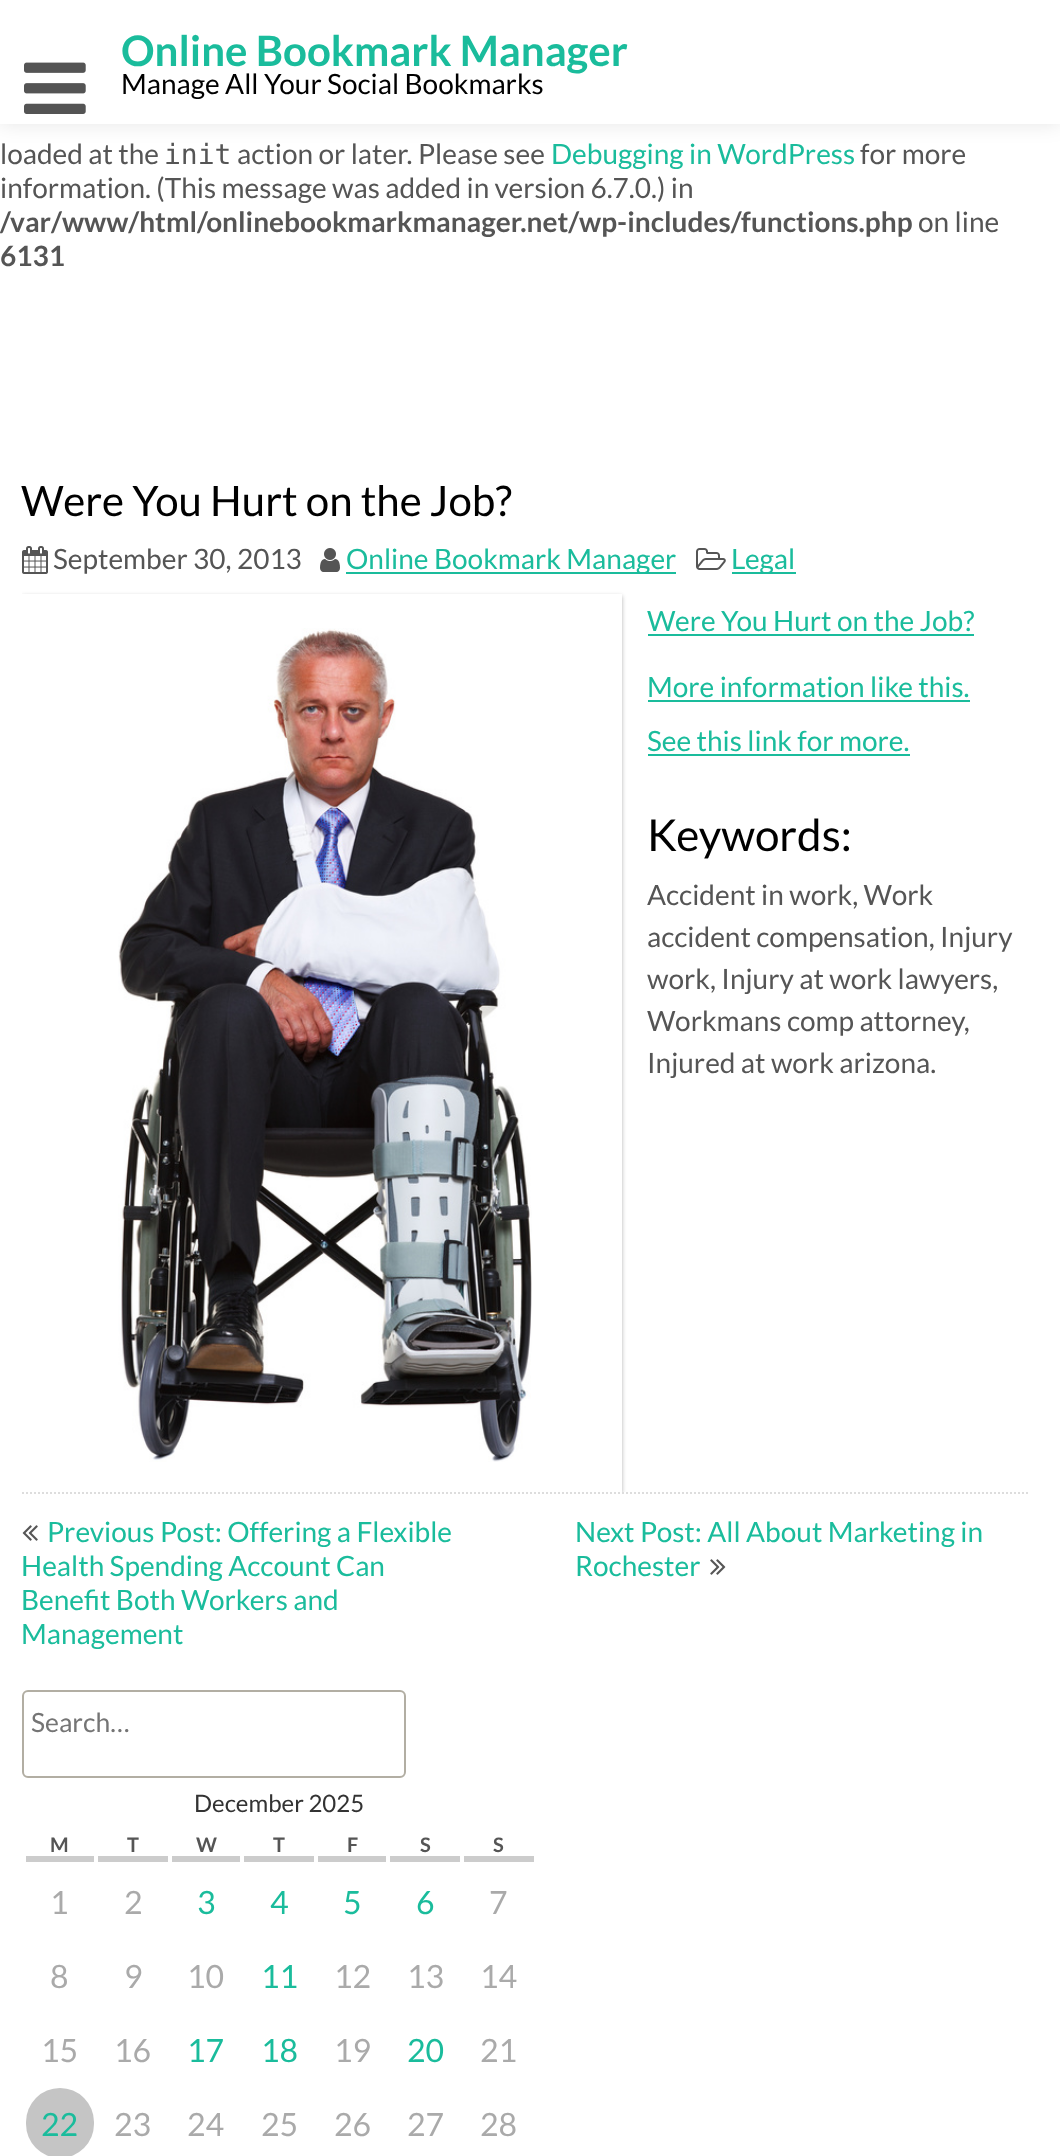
<!DOCTYPE html>
<meta charset="utf-8">
<style>body { margin: 0 } canvas { display: block }</style>
<canvas id="canvas" width="1060" height="2156"></canvas>
<script type="module">
  const canvas = document.getElementById("canvas");
  const ctx = canvas.getContext("2d");
  ctx.miterLimit = 4;
  ctx.fontKerning = "normal";
  async function loadImage(src) {
    const img = new Image();
    img.src = src;
    await img.decode();
    return img;
  }

  ctx.fillStyle = "#ffffff";
  ctx.fillRect(0, 0, 1060, 2156);
  ctx.fillStyle = "rgba(0, 0, 0, 0.1)";
  ctx.filter = "blur(10px)";
  ctx.beginPath();
  ctx.rect(0, 0, 1060, 124);
  ctx.fill();
  ctx.filter = "none";
  ctx.fillStyle = "#ffffff";
  ctx.fillRect(0, 0, 1060, 124);
  ctx.drawImage(await loadImage("img1.png"), 24, 62, 62, 52);
  ctx.font = "bold 42px Lato";
  ctx.fillStyle = "#1abc9c";
  ctx.fillText("Online Bookmark Manager", 121, 66);
  ctx.font = "28px Lato";
  ctx.fillStyle = "#000000";
  ctx.fillText("Manage All Your Social Bookmarks", 121, 94);
  ctx.font = "42px Lato";
  ctx.fillText("Were You Hurt on the Job?", 21, 516);
  ctx.drawImage(await loadImage("img2.png"), 22, 546, 26, 28);
  ctx.font = "28px Lato";
  ctx.fillStyle = "#555555";
  ctx.fillText("September 30, 2013", 53, 569);
  ctx.drawImage(await loadImage("img3.png"), 320, 548, 20, 24);
  ctx.fillStyle = "#1abc9c";
  ctx.fillRect(346, 572, 330, 2);
  ctx.fillText("Online Bookmark Manager", 346, 569);
  ctx.drawImage(await loadImage("img4.png"), 696, 548, 30, 22);
  ctx.fillRect(732, 572, 64, 2);
  ctx.fillText("Legal", 731, 569);
  ctx.beginPath();
  ctx.moveTo(22, 1493);
  ctx.lineTo(1028, 1493);
  ctx.strokeStyle = "#dddddd";
  ctx.lineWidth = 2;
  ctx.setLineDash([2, 2]);
  ctx.stroke();
  ctx.save();
  ctx.beginPath();
  ctx.rect(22, 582, 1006, 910);
  ctx.clip();
  ctx.beginPath();
  ctx.moveTo(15, 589);
  ctx.lineTo(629, 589);
  ctx.lineTo(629, 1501);
  ctx.lineTo(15, 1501);
  ctx.closePath();
  ctx.moveTo(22, 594);
  ctx.lineTo(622, 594);
  ctx.lineTo(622, 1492);
  ctx.lineTo(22, 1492);
  ctx.closePath();
  ctx.clip("evenodd");
  ctx.fillStyle = "rgba(0, 0, 0, 0.3)";
  ctx.filter = "blur(2px)";
  ctx.beginPath();
  ctx.rect(22, 596, 600, 898);
  ctx.fill();
  ctx.filter = "none";
  ctx.restore();
  ctx.drawImage(await loadImage("img5.png"), 118, 628, 414, 834);
  ctx.fillText("Were You Hurt on the Job?", 647, 631);
  ctx.fillRect(648, 634, 326, 2);
  ctx.fillText("More information like this.", 647, 697);
  ctx.fillRect(648, 700, 322, 2);
  ctx.fillText("See this link for more.", 647, 751);
  ctx.fillRect(648, 754, 262, 2);
  ctx.font = "44px Lato";
  ctx.fillStyle = "#000000";
  ctx.fillText("Keywords:", 647, 851);
  ctx.font = "28px Lato";
  ctx.fillStyle = "#555555";
  ctx.fillText("Accident in work, Work", 647, 905);
  ctx.fillText("accident compensation, Injury", 647, 947);
  ctx.fillText("work, Injury at work lawyers,", 647, 989);
  ctx.fillText("Workmans comp attorney,", 647, 1031);
  ctx.fillText("Injured at work arizona.", 647, 1073);
  ctx.drawImage(await loadImage("img6.png"), 22, 1525, 16, 16);
  ctx.fillStyle = "#1abc9c";
  ctx.fillText("Previous Post: Offering a Flexible", 47, 1542);
  ctx.fillText("Health Spending Account Can", 21, 1576);
  ctx.fillText("Benefit Both Workers and", 21, 1610);
  ctx.fillText("Management", 21, 1644);
  ctx.fillText("Next Post: All About Marketing in", 575, 1542);
  ctx.fillText("Rochester", 575, 1576);
  ctx.drawImage(await loadImage("img7.png"), 710, 1559, 16, 16);
  ctx.beginPath();
  ctx.roundRect(23, 1691, 382, 86, 5);
  ctx.strokeStyle = "#b2aea3";
  ctx.setLineDash([]);
  ctx.stroke();
  ctx.font = "26.5px Lato";
  ctx.fillStyle = "#757575";
  ctx.fillText("Search…", 31, 1732);
  ctx.font = "24px Lato";
  ctx.fillStyle = "#333333";
  ctx.fillText("December 2025", 194, 1812);
  ctx.fillStyle = "#cccccc";
  ctx.fillRect(26, 1856, 68, 6);
  ctx.font = "bold 20px Lato";
  ctx.fillStyle = "#555555";
  ctx.fillText("M", 50, 1852);
  ctx.fillStyle = "#cccccc";
  ctx.fillRect(98, 1856, 70, 6);
  ctx.fillStyle = "#555555";
  ctx.fillText("T", 127, 1852);
  ctx.fillStyle = "#cccccc";
  ctx.fillRect(172, 1856, 68, 6);
  ctx.fillStyle = "#555555";
  ctx.fillText("W", 196, 1852);
  ctx.fillStyle = "#cccccc";
  ctx.fillRect(244, 1856, 70, 6);
  ctx.fillStyle = "#555555";
  ctx.fillText("T", 273, 1852);
  ctx.fillStyle = "#cccccc";
  ctx.fillRect(318, 1856, 68, 6);
  ctx.fillStyle = "#555555";
  ctx.fillText("F", 347, 1852);
  ctx.fillStyle = "#cccccc";
  ctx.fillRect(390, 1856, 70, 6);
  ctx.fillStyle = "#555555";
  ctx.fillText("S", 420, 1852);
  ctx.fillStyle = "#cccccc";
  ctx.fillRect(464, 1856, 70, 6);
  ctx.fillStyle = "#555555";
  ctx.fillText("S", 493, 1852);
  ctx.font = "32px Lato";
  ctx.fillStyle = "#aaaaaa";
  ctx.fillText("1", 50, 1914);
  ctx.fillText("2", 124, 1914);
  ctx.fillStyle = "#1abc9c";
  ctx.fillText("3", 197, 1914);
  ctx.fillText("4", 270, 1914);
  ctx.fillText("5", 343, 1914);
  ctx.fillText("6", 416, 1914);
  ctx.fillStyle = "#aaaaaa";
  ctx.fillText("7", 489, 1914);
  ctx.fillText("8", 50, 1988);
  ctx.fillText("9", 124, 1988);
  ctx.fillText("10", 187, 1988);
  ctx.fillStyle = "#1abc9c";
  ctx.fillText("11", 261, 1988);
  ctx.fillStyle = "#aaaaaa";
  ctx.fillText("12", 334, 1988);
  ctx.fillText("13", 407, 1988);
  ctx.fillText("14", 480, 1988);
  ctx.fillText("15", 41, 2062);
  ctx.fillText("16", 114, 2062);
  ctx.fillStyle = "#1abc9c";
  ctx.fillText("17", 187, 2062);
  ctx.fillText("18", 261, 2062);
  ctx.fillStyle = "#aaaaaa";
  ctx.fillText("19", 334, 2062);
  ctx.fillStyle = "#1abc9c";
  ctx.fillText("20", 407, 2062);
  ctx.fillStyle = "#aaaaaa";
  ctx.fillText("21", 480, 2062);
  ctx.fillStyle = "#c5c5c5";
  ctx.beginPath();
  ctx.roundRect(26, 2088, 68, 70, 34);
  ctx.fill();
  ctx.fillStyle = "#1abc9c";
  ctx.fillText("22", 41, 2136);
  ctx.fillStyle = "#aaaaaa";
  ctx.fillText("23", 114, 2136);
  ctx.fillText("24", 187, 2136);
  ctx.fillText("25", 261, 2136);
  ctx.fillText("26", 334, 2136);
  ctx.fillText("27", 407, 2136);
  ctx.fillText("28", 480, 2136);
  ctx.font = "28px Lato";
  ctx.fillStyle = "#555555";
  ctx.fillText("loaded at the", 0, 164);
  ctx.font = "28px DejaVu Sans Mono";
  ctx.fillText("init", 164, 164);
  ctx.font = "28px Lato";
  ctx.fillText("action or later. Please see", 237, 164);
  ctx.fillStyle = "#1abc9c";
  ctx.fillText("Debugging in WordPress", 551, 164);
  ctx.fillStyle = "#555555";
  ctx.fillText("for more", 860, 164);
  ctx.fillText("information. (This message was added in version 6.7.0.) in", 0, 198);
  ctx.font = "bold 28px Lato";
  ctx.fillText("/var/www/html/onlinebookmarkmanager.net/wp-includes/functions.php", 0, 232);
  ctx.font = "28px Lato";
  ctx.fillText("on line", 918, 232);
  ctx.font = "bold 28px Lato";
  ctx.fillText("6131", 0, 266);
</script>
